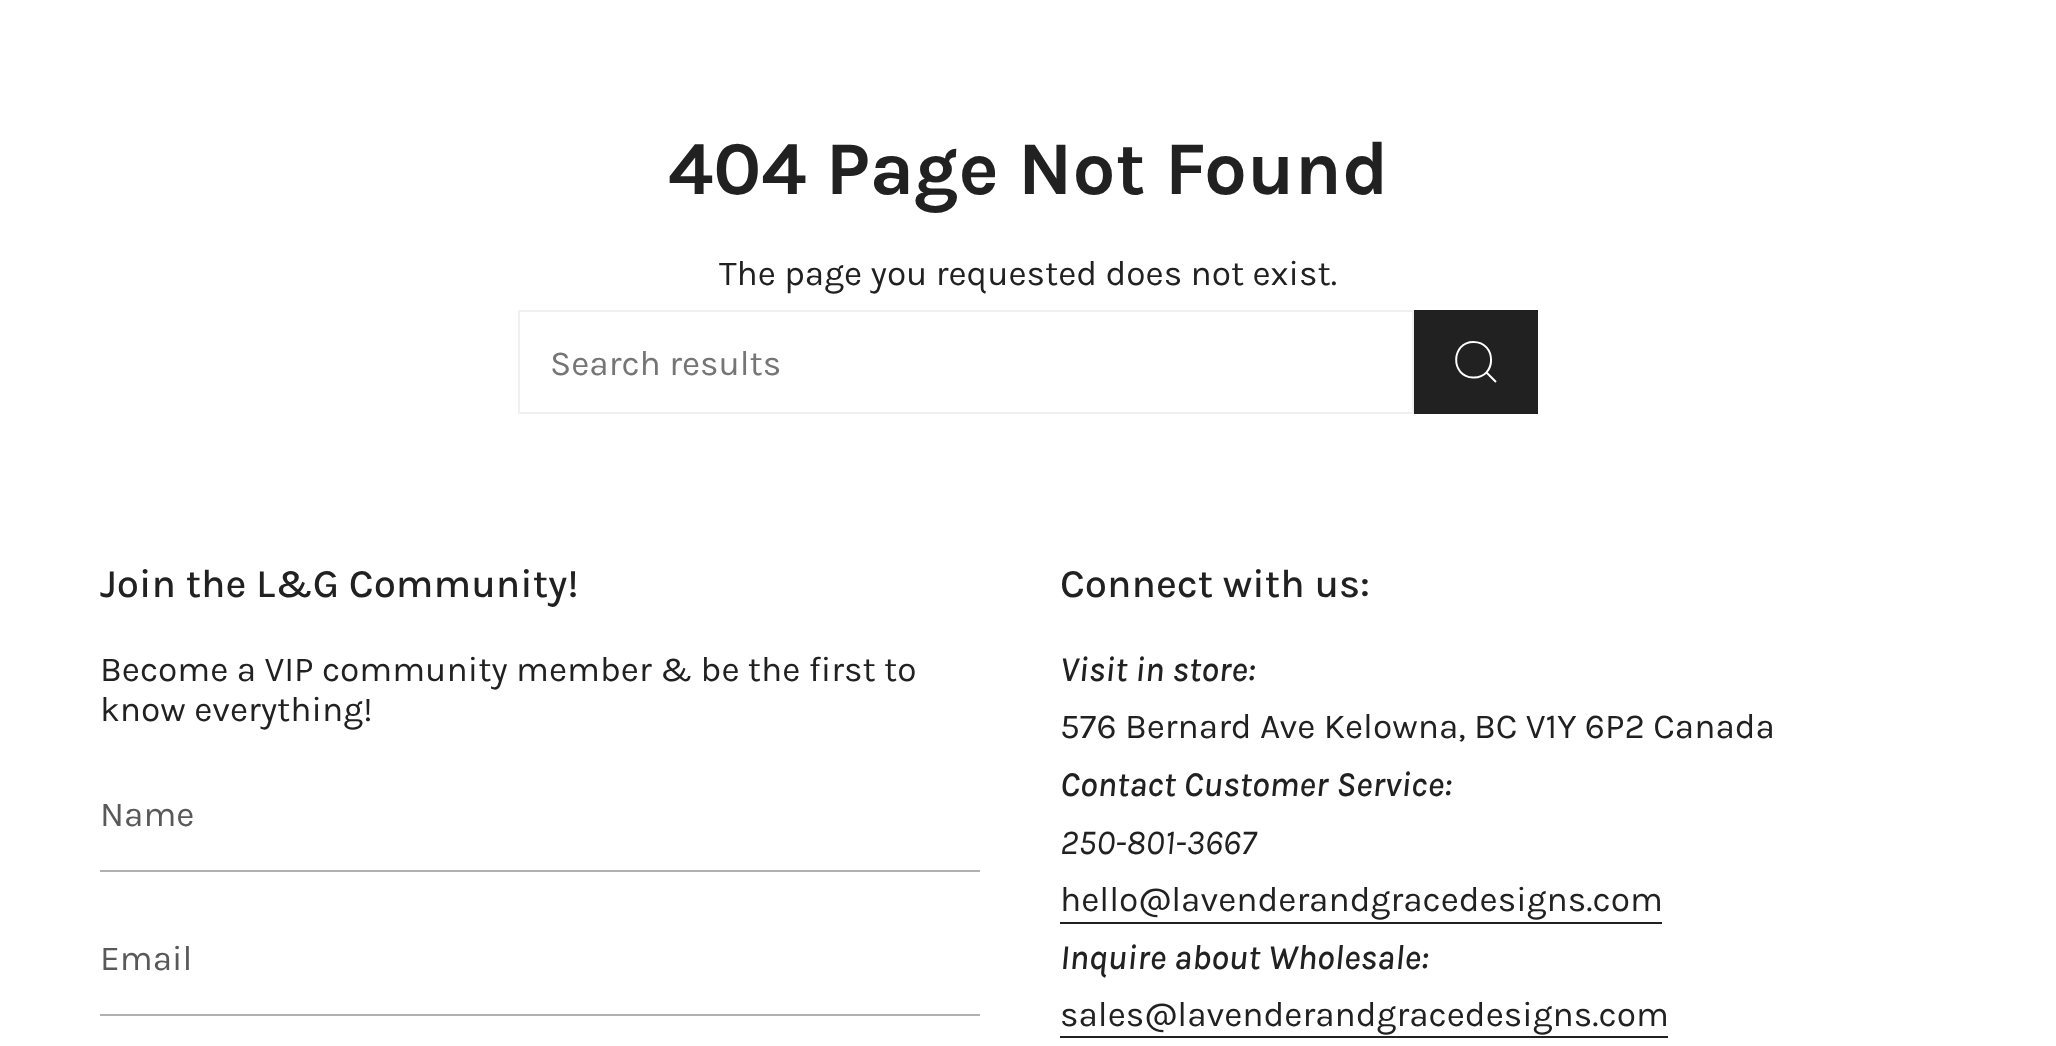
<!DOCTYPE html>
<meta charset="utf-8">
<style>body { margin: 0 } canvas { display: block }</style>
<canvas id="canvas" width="2056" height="1046"></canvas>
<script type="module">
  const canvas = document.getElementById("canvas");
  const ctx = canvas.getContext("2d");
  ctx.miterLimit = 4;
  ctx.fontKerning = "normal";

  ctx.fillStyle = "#ffffff";
  ctx.fillRect(0, 0, 2056, 1046);
  ctx.font = "bold 76px Karla";
  ctx.fillStyle = "#212121";
  ctx.fillText("404 Page Not Found", 668, 194);
  ctx.font = "35.2px Karla";
  ctx.fillText("The page you requested does not exist.", 719, 285);
  ctx.strokeStyle = "#f0f0f0";
  ctx.lineWidth = 2;
  ctx.strokeRect(519, 311, 894, 102);
  ctx.fillStyle = "#757575";
  ctx.fillText("Search results", 550, 375);
  ctx.fillStyle = "#212121";
  ctx.fillRect(1414, 310, 124, 104);
  ctx.beginPath();
  ctx.moveTo(1473.5, 342);
  ctx.bezierCurveTo(1497, 342, 1497, 378.5, 1473, 377.5);
  ctx.bezierCurveTo(1450, 376.5, 1451, 342, 1473.5, 342);
  ctx.closePath();
  ctx.moveTo(1486, 372);
  ctx.lineTo(1496, 382);
  ctx.strokeStyle = "#ffffff";
  ctx.stroke();
  ctx.font = "500 40px Karla";
  ctx.fillText("Join the L&G Community!", 100, 597);
  ctx.font = "35.2px Karla";
  ctx.fillText("Become a VIP community member & be the first to", 100, 681);
  ctx.fillText("know everything!", 100, 721);
  ctx.fillStyle = "#b1b1b1";
  ctx.fillRect(100, 870, 880, 2);
  ctx.fillStyle = "#595959";
  ctx.fillText("Name", 100, 826);
  ctx.fillStyle = "#b1b1b1";
  ctx.fillRect(100, 1014, 880, 2);
  ctx.fillStyle = "#595959";
  ctx.fillText("Email", 100, 970);
  ctx.font = "500 40px Karla";
  ctx.fillStyle = "#212121";
  ctx.fillText("Connect with us:", 1060, 597);
  ctx.font = "italic 500 35.2px Karla";
  ctx.fillText("Visit in store:", 1060, 681);
  ctx.font = "35.2px Karla";
  ctx.fillText("576 Bernard Ave Kelowna, BC V1Y 6P2 Canada", 1060, 738);
  ctx.font = "italic 500 35.2px Karla";
  ctx.fillText("Contact Customer Service:", 1060, 796);
  ctx.font = "italic 35.2px Karla";
  ctx.fillText("250-801-3667", 1060, 854);
  ctx.font = "35.2px Karla";
  ctx.fillText("hello@lavenderandgracedesigns.com", 1060, 911);
  ctx.fillRect(1060, 922, 602, 2);
  ctx.font = "italic 500 35.2px Karla";
  ctx.fillText("Inquire about Wholesale:", 1060, 969);
  ctx.font = "35.2px Karla";
  ctx.fillText("sales@lavenderandgracedesigns.com", 1060, 1026);
  ctx.fillRect(1060, 1036, 608, 2);
</script>
